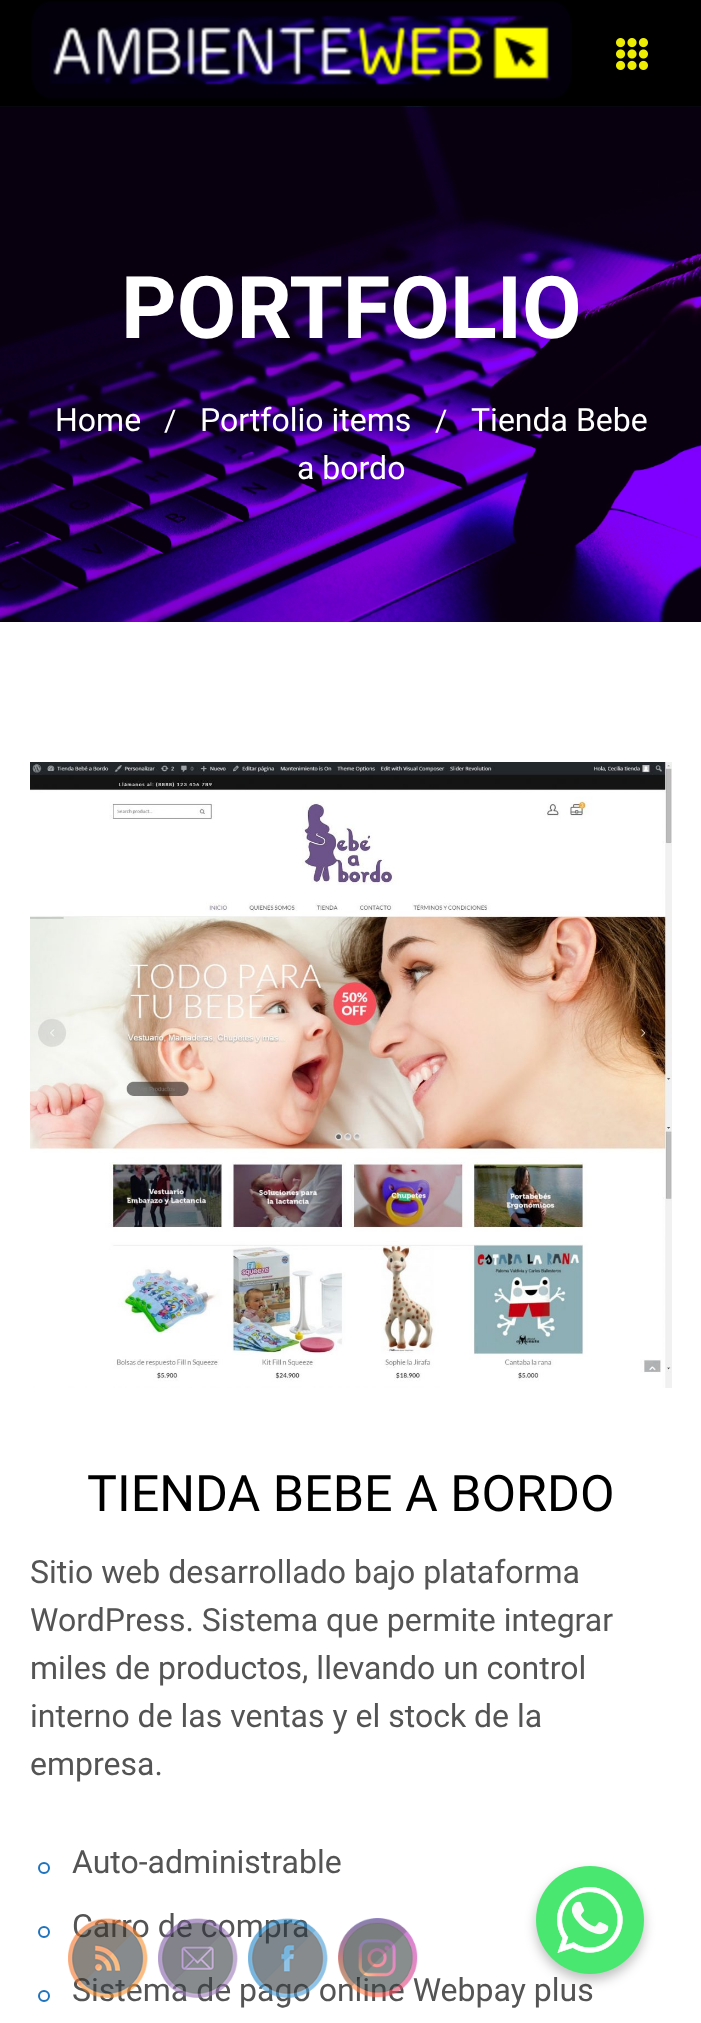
<!DOCTYPE html>
<meta charset="utf-8">
<style>body { margin: 0 } canvas { display: block }</style>
<canvas id="canvas" width="701" height="2023"></canvas>
<script type="module">
  const canvas = document.getElementById("canvas");
  const ctx = canvas.getContext("2d");
  ctx.miterLimit = 4;
  ctx.fontKerning = "normal";
  async function loadImage(src) {
    const img = new Image();
    img.src = src;
    await img.decode();
    return img;
  }

  ctx.fillStyle = "#ffffff";
  ctx.fillRect(0, 0, 701, 2023);
  ctx.fillStyle = "#000000";
  ctx.fillRect(0, 0, 701, 106);
  ctx.drawImage(await loadImage("img1.png"), 31, 1, 541, 98);
  ctx.drawImage(await loadImage("img2.png"), 616, 38, 32, 32);
  ctx.drawImage(await loadImage("img3.png"), 0, 106, 701, 516);
  ctx.font = "bold 86.5px Roboto";
  ctx.fillStyle = "#ffffff";
  ctx.fillText("PORTFOLIO", 121, 338);
  ctx.font = "32px Roboto";
  ctx.fillText("Home", 55, 431);
  ctx.font = "30px Roboto";
  ctx.fillText("/", 164, 431);
  ctx.font = "32px Roboto";
  ctx.fillText("Portfolio items", 200, 431);
  ctx.font = "30px Roboto";
  ctx.fillText("/", 435, 431);
  ctx.font = "32px Roboto";
  ctx.fillText("Tienda Bebe", 471, 431);
  ctx.fillText("a bordo", 297, 479);
  ctx.drawImage(await loadImage("img4.png"), 30, 762, 642, 626);
  ctx.font = "50.25px Roboto";
  ctx.fillStyle = "#000000";
  ctx.fillText("TIENDA BEBE A BORDO", 87, 1511);
  ctx.font = "32px Roboto";
  ctx.fillStyle = "#545454";
  ctx.fillText("Sitio web desarrollado bajo plataforma", 30, 1583);
  ctx.fillText("WordPress. Sistema que permite integrar", 30, 1631);
  ctx.fillText("miles de productos, llevando un control", 30, 1679);
  ctx.fillText("interno de las ventas y el stock de la", 30, 1727);
  ctx.fillText("empresa.", 30, 1775);
  ctx.beginPath();
  ctx.arc(44, 1868, 5, 0, Math.PI * 2);
  ctx.strokeStyle = "#1e73be";
  ctx.lineWidth = 2;
  ctx.stroke();
  ctx.fillText("Auto-administrable", 72, 1873);
  ctx.beginPath();
  ctx.arc(44, 1932, 5, 0, Math.PI * 2);
  ctx.stroke();
  ctx.fillText("Carro de compra", 72, 1937);
  ctx.beginPath();
  ctx.arc(44, 1996, 5, 0, Math.PI * 2);
  ctx.stroke();
  ctx.fillText("Sistema de pago online Webpay plus", 72, 2001);
  ctx.drawImage(await loadImage("img5.png"), 68, 1918, 80, 80);
  ctx.drawImage(await loadImage("img6.png"), 158, 1918, 80, 80);
  ctx.drawImage(await loadImage("img7.png"), 248, 1918, 80, 80);
  ctx.drawImage(await loadImage("img8.png"), 338, 1918, 80, 80);
  ctx.fillStyle = "rgba(0, 0, 0, 0.25)";
  ctx.filter = "blur(6px)";
  ctx.beginPath();
  ctx.roundRect(536, 1872, 108, 108, 54);
  ctx.fill();
  ctx.filter = "none";
  ctx.drawImage(await loadImage("img9.png"), 536, 1866, 108, 108);
</script>
